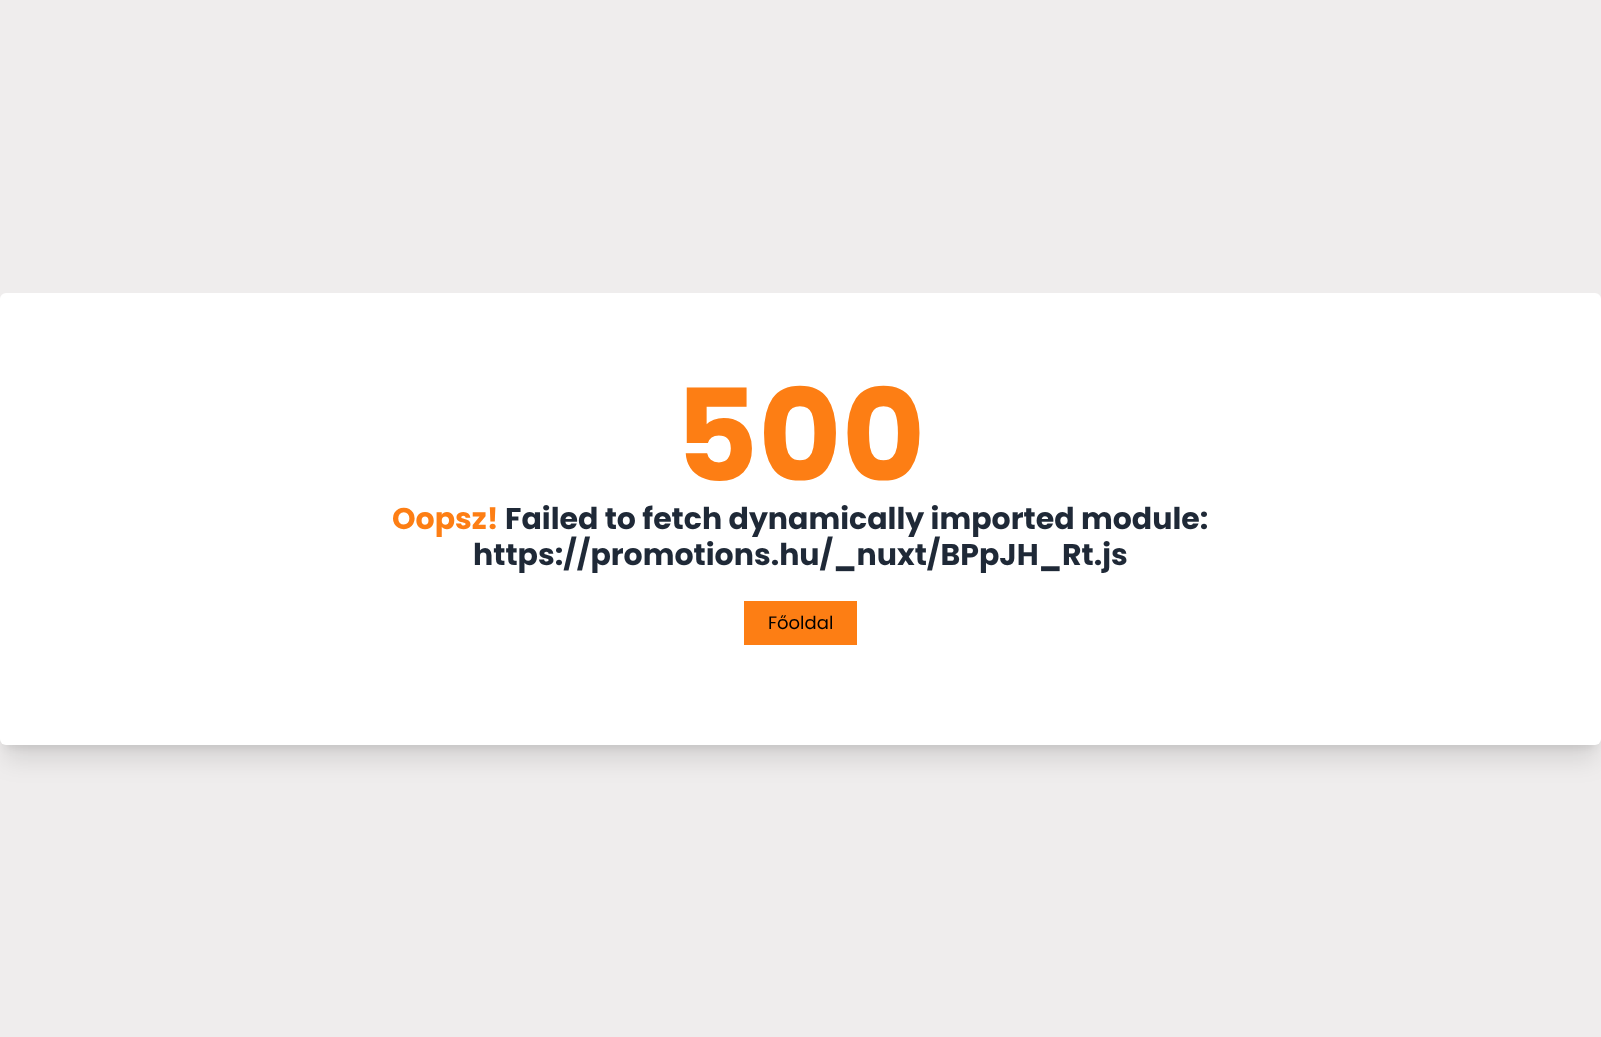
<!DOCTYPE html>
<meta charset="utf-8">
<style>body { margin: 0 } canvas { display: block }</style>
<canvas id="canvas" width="1601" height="1037"></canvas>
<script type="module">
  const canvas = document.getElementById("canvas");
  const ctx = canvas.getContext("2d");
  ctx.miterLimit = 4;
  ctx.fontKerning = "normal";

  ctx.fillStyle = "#efeded";
  ctx.fillRect(0, 0, 1601, 1037);
  ctx.fillStyle = "rgba(0, 0, 0, 0.1)";
  ctx.filter = "blur(5px)";
  ctx.beginPath();
  ctx.rect(6, 307, 1589, 440);
  ctx.fill();
  ctx.filter = "none";
  ctx.filter = "blur(12.5px)";
  ctx.beginPath();
  ctx.roundRect(5, 318, 1591, 442, 1);
  ctx.fill();
  ctx.filter = "none";
  ctx.fillStyle = "#ffffff";
  ctx.beginPath();
  ctx.roundRect(0, 293, 1601, 452, 6);
  ctx.fill();
  ctx.font = "bold 128px Poppins";
  ctx.fillStyle = "#fd7e14";
  ctx.fillText("500", 675, 481);
  ctx.font = "bold 30px Poppins";
  ctx.fillText("Oopsz!", 392, 529);
  ctx.fillStyle = "#1f2937";
  ctx.fillText("Failed to fetch dynamically imported module:", 505, 529);
  ctx.fillText("https://promotions.hu/_nuxt/BPpJH_Rt.js", 473, 565);
  ctx.fillStyle = "#fd7e14";
  ctx.fillRect(744, 601, 113, 44);
  ctx.font = "18px Poppins";
  ctx.fillStyle = "#000000";
  ctx.fillText("Főoldal", 768, 629);
</script>
